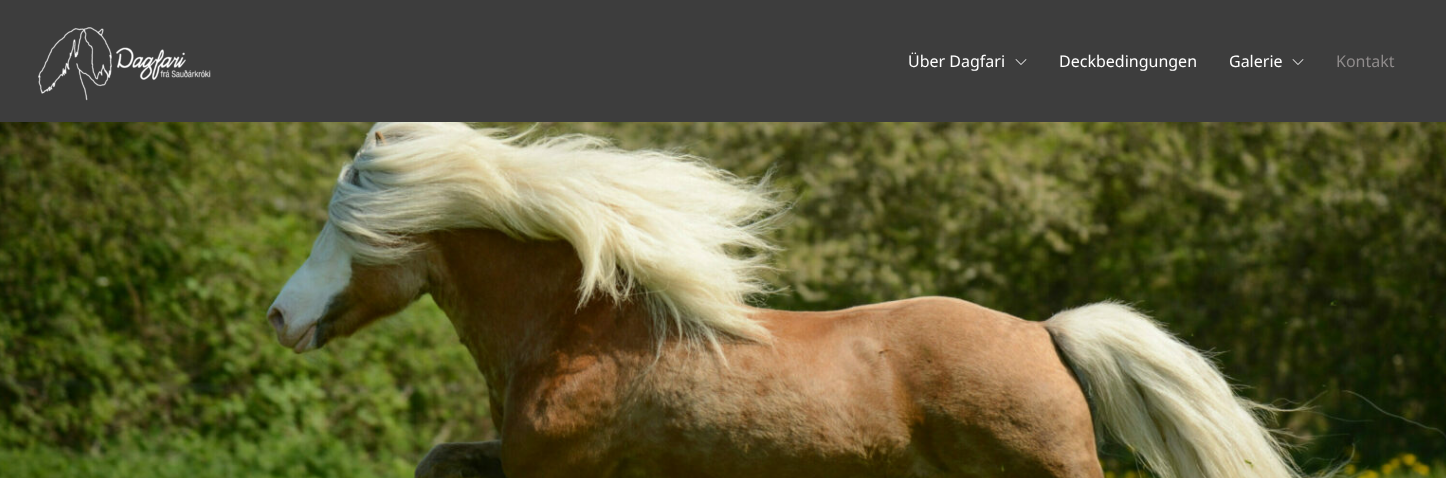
<!DOCTYPE html>
<meta charset="utf-8">
<style>body { margin: 0 } canvas { display: block }</style>
<canvas id="canvas" width="1446" height="478"></canvas>
<script type="module">
  const canvas = document.getElementById("canvas");
  const ctx = canvas.getContext("2d");
  ctx.miterLimit = 4;
  ctx.fontKerning = "normal";
  async function loadImage(src) {
    const img = new Image();
    img.src = src;
    await img.decode();
    return img;
  }

  ctx.fillStyle = "#ffffff";
  ctx.fillRect(0, 0, 1446, 478);
  ctx.fillStyle = "#3d3d3d";
  ctx.fillRect(0, 0, 1446, 122);
  ctx.drawImage(await loadImage("img1.png"), 38, 27, 173, 74);
  ctx.font = "16px Noto Sans";
  ctx.fillStyle = "#ffffff";
  ctx.fillText("Über Dagfari", 908, 67);
  ctx.drawImage(await loadImage("img2.png"), 1015, 59, 12, 6);
  ctx.fillText("Deckbedingungen", 1059, 67);
  ctx.fillText("Galerie", 1229, 67);
  ctx.drawImage(await loadImage("img2.png"), 1292, 59, 12, 6);
  ctx.fillStyle = "#8f8b8b";
  ctx.fillText("Kontakt", 1336, 67);
  ctx.drawImage(await loadImage("img3.png"), 0, 122, 1446, 356);
</script>
